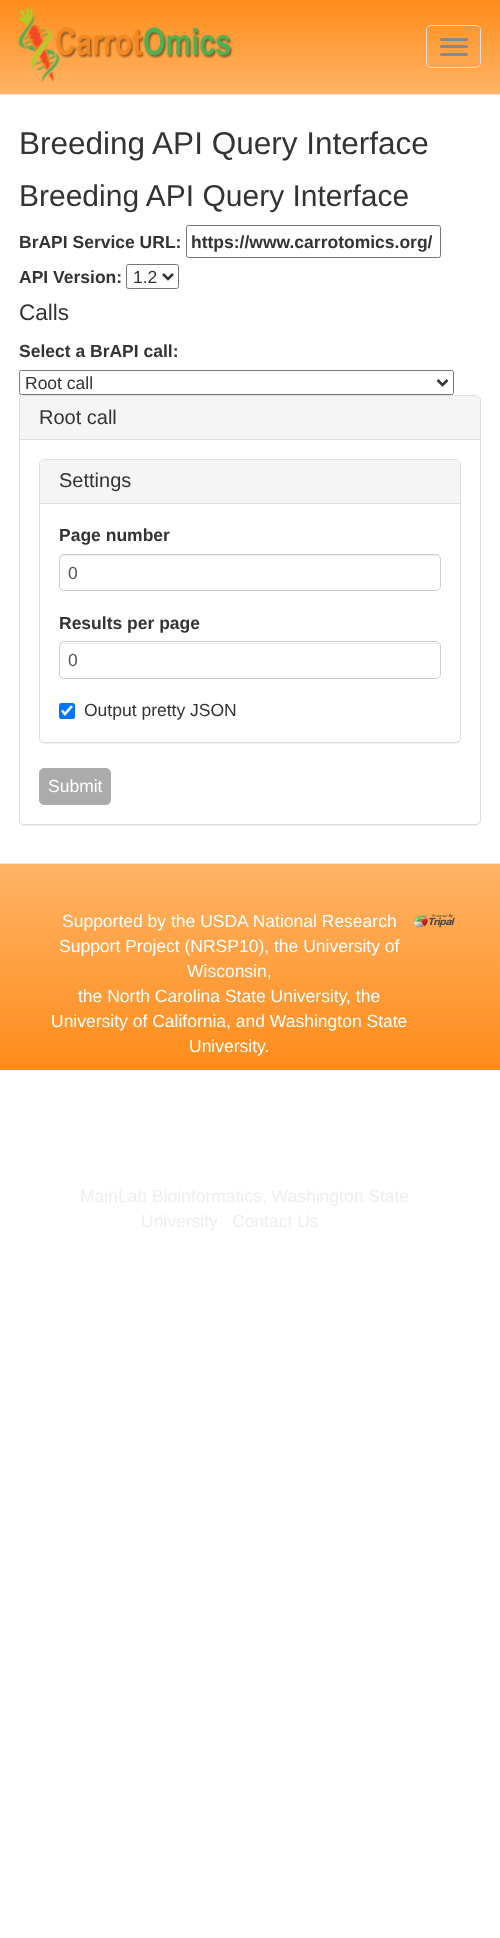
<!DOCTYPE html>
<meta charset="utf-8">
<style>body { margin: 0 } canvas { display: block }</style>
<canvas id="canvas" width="500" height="1938"></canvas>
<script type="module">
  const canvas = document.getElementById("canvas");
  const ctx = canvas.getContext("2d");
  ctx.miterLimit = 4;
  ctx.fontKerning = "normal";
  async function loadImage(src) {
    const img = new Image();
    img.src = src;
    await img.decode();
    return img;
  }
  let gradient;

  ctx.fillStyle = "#ffffff";
  ctx.fillRect(0, 0, 500, 1938);
  gradient = ctx.createLinearGradient(250, 0, 250, 94);
  gradient.addColorStop(0, "#ff8c1a");
  gradient.addColorStop(1, "#ffb366");
  ctx.fillStyle = gradient;
  ctx.fillRect(0, 0, 500, 94);
  ctx.fillStyle = "#e7e7e7";
  ctx.fillRect(0, 94, 500, 1);
  ctx.drawImage(await loadImage("img1.png"), 18, 7, 215, 76);
  ctx.beginPath();
  ctx.roundRect(426.5, 25.5, 54, 42, 4.5);
  ctx.strokeStyle = "#dddddd";
  ctx.stroke();
  ctx.fillStyle = "#888888";
  ctx.beginPath();
  ctx.roundRect(440, 38, 28, 3, 1.5);
  ctx.fill();
  ctx.beginPath();
  ctx.roundRect(440, 45, 28, 3, 1.5);
  ctx.fill();
  ctx.beginPath();
  ctx.roundRect(440, 53, 28, 3, 1.5);
  ctx.fill();
  ctx.font = "31.5px Liberation Sans";
  ctx.fillStyle = "#333333";
  ctx.fillText("Breeding API Query Interface", 19, 154);
  ctx.font = "30px Liberation Sans";
  ctx.fillText("Breeding API Query Interface", 19, 206);
  ctx.font = "bold 17.5px Liberation Sans";
  ctx.fillText("BrAPI Service URL:", 19, 248);
  ctx.beginPath();
  ctx.roundRect(186.5, 225.5, 254, 32, 2);
  ctx.strokeStyle = "#767676";
  ctx.stroke();
  ctx.fillText("https://www.carrotomics.org/", 191, 248);
  ctx.fillText("API Version:", 19, 283);
  ctx.beginPath();
  ctx.roundRect(126.5, 264.5, 52, 24, 2);
  ctx.stroke();
  ctx.beginPath();
  ctx.moveTo(163, 274);
  ctx.lineTo(168, 279);
  ctx.lineTo(173, 274);
  ctx.strokeStyle = "#333333";
  ctx.lineWidth = 2.5;
  ctx.stroke();
  ctx.font = "17.5px Liberation Sans";
  ctx.fillText("1.2", 133, 283);
  ctx.font = "22.5px Liberation Sans";
  ctx.fillText("Calls", 19, 320);
  ctx.font = "bold 17.5px Liberation Sans";
  ctx.fillText("Select a BrAPI call:", 19, 357);
  ctx.fillStyle = "rgba(0, 0, 0, 0.05)";
  ctx.filter = "blur(0.5px)";
  ctx.beginPath();
  ctx.roundRect(19, 396, 462, 430, 5);
  ctx.fill();
  ctx.filter = "none";
  ctx.beginPath();
  ctx.roundRect(19.5, 370.5, 434, 24, 2);
  ctx.strokeStyle = "#767676";
  ctx.lineWidth = 1;
  ctx.stroke();
  ctx.beginPath();
  ctx.moveTo(437.5, 380);
  ctx.lineTo(442.5, 385);
  ctx.lineTo(447.5, 380);
  ctx.strokeStyle = "#333333";
  ctx.lineWidth = 2.5;
  ctx.stroke();
  ctx.font = "17.5px Liberation Sans";
  ctx.fillStyle = "#333333";
  ctx.fillText("Root call", 25, 389);
  ctx.fillStyle = "#ffffff";
  ctx.beginPath();
  ctx.roundRect(19.5, 395.5, 461, 429, 4.5);
  ctx.fill();
  ctx.strokeStyle = "#dddddd";
  ctx.lineWidth = 1;
  ctx.stroke();
  ctx.fillStyle = "#f5f5f5";
  ctx.beginPath();
  ctx.roundRect(20, 396, 460, 44, [4, 4, 0, 0]);
  ctx.fill();
  ctx.fillStyle = "#dddddd";
  ctx.fillRect(20, 439, 460, 1);
  ctx.font = "20px Liberation Sans";
  ctx.fillStyle = "#333333";
  ctx.fillText("Root call", 39, 424);
  ctx.fillStyle = "rgba(0, 0, 0, 0.05)";
  ctx.filter = "blur(0.5px)";
  ctx.beginPath();
  ctx.roundRect(39, 460, 422, 284, 5);
  ctx.fill();
  ctx.filter = "none";
  ctx.fillStyle = "#ffffff";
  ctx.beginPath();
  ctx.roundRect(39.5, 459.5, 421, 283, 4.5);
  ctx.fill();
  ctx.stroke();
  ctx.fillStyle = "#f5f5f5";
  ctx.beginPath();
  ctx.roundRect(40, 460, 420, 44, [4, 4, 0, 0]);
  ctx.fill();
  ctx.fillStyle = "#dddddd";
  ctx.fillRect(40, 503, 420, 1);
  ctx.fillStyle = "#333333";
  ctx.fillText("Settings", 59, 487);
  ctx.font = "bold 17.5px Liberation Sans";
  ctx.fillText("Page number", 59, 541);
  ctx.fillStyle = "#ececec";
  ctx.beginPath();
  ctx.moveTo(64, 556);
  ctx.lineTo(436, 556);
  ctx.bezierCurveTo(438, 556, 440, 558, 440, 560);
  ctx.bezierCurveTo(440, 557, 439, 555, 436, 555);
  ctx.lineTo(64, 555);
  ctx.bezierCurveTo(61, 555, 60, 557, 60, 560);
  ctx.bezierCurveTo(60, 558, 62, 556, 64, 556);
  ctx.closePath();
  ctx.fill();
  ctx.beginPath();
  ctx.roundRect(59.5, 554.5, 381, 36, 4.5);
  ctx.strokeStyle = "#cccccc";
  ctx.stroke();
  ctx.font = "17.5px Liberation Sans";
  ctx.fillStyle = "#555555";
  ctx.fillText("0", 68, 579);
  ctx.font = "bold 17.5px Liberation Sans";
  ctx.fillStyle = "#333333";
  ctx.fillText("Results per page", 59, 629);
  ctx.fillStyle = "#ececec";
  ctx.beginPath();
  ctx.moveTo(64, 644);
  ctx.lineTo(436, 644);
  ctx.bezierCurveTo(438, 644, 440, 645, 440, 648);
  ctx.bezierCurveTo(440, 645, 439, 643, 436, 643);
  ctx.lineTo(64, 643);
  ctx.bezierCurveTo(61, 643, 60, 645, 60, 648);
  ctx.bezierCurveTo(60, 645, 62, 644, 64, 644);
  ctx.closePath();
  ctx.fill();
  ctx.beginPath();
  ctx.roundRect(59.5, 641.5, 381, 37, 4.5);
  ctx.stroke();
  ctx.font = "17.5px Liberation Sans";
  ctx.fillStyle = "#555555";
  ctx.fillText("0", 68, 666);
  ctx.fillStyle = "#0075ff";
  ctx.beginPath();
  ctx.roundRect(59, 703, 16, 16, 2.5);
  ctx.fill();
  ctx.beginPath();
  ctx.moveTo(62, 710.5);
  ctx.lineTo(65, 714);
  ctx.lineTo(72, 706);
  ctx.strokeStyle = "#ffffff";
  ctx.lineWidth = 2.6;
  ctx.stroke();
  ctx.fillStyle = "#333333";
  ctx.fillText("Output pretty JSON", 84, 716);
  ctx.fillStyle = "#ababab";
  ctx.beginPath();
  ctx.roundRect(39.5, 768.5, 71, 36, 4.5);
  ctx.fill();
  ctx.strokeStyle = "#ababab";
  ctx.lineWidth = 1;
  ctx.stroke();
  ctx.fillStyle = "#ffffff";
  ctx.fillText("Submit", 48, 792);
  gradient = ctx.createLinearGradient(250, 864, 250, 1070);
  gradient.addColorStop(0, "#ffb366");
  gradient.addColorStop(1, "#ff8c1a");
  ctx.fillStyle = gradient;
  ctx.fillRect(0, 864, 500, 206);
  ctx.fillStyle = "#e5e5e5";
  ctx.fillRect(0, 863, 500, 1);
  ctx.fillStyle = "#ffffff";
  ctx.fillText("Supported by the USDA National Research", 62, 927);
  ctx.fillText("Support Project (NRSP10), the University of", 59, 952);
  ctx.fillText("Wisconsin,", 187, 977);
  ctx.fillText("the North Carolina State University, the", 78, 1002);
  ctx.fillText("University of California, and Washington State", 51, 1027);
  ctx.fillText("University.", 189, 1052);
  ctx.fillStyle = "#eeeeee";
  ctx.fillText("MainLab Bioinformatics, Washington State", 80, 1202);
  ctx.fillText("University", 141, 1227);
  ctx.fillText("Contact Us", 232, 1227);
  ctx.drawImage(await loadImage("img2.png"), 413, 914, 42, 14);
</script>
